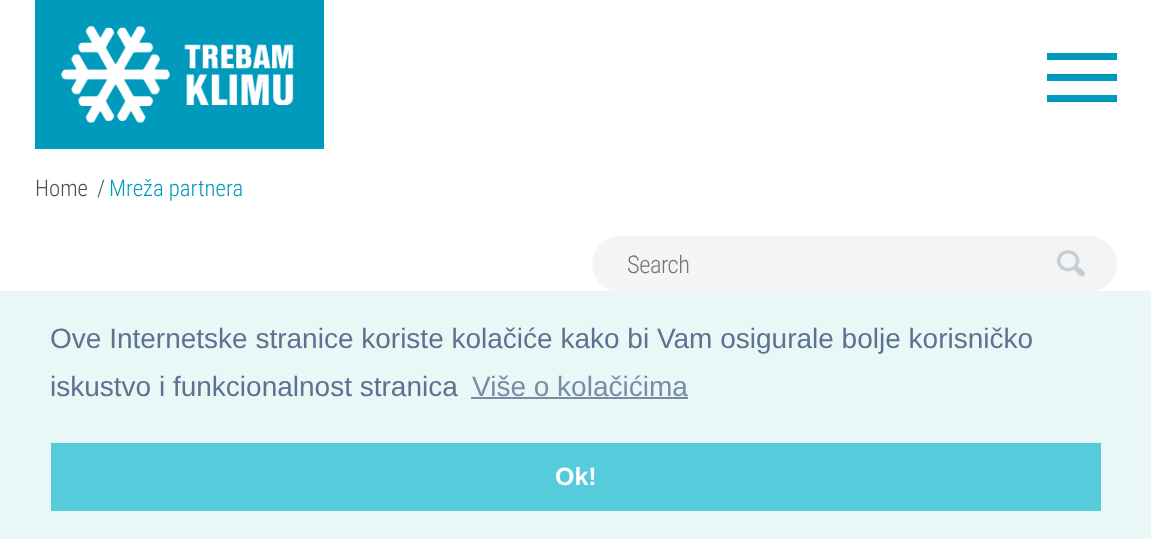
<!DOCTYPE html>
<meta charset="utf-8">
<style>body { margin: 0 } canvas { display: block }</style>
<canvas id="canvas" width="1151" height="539"></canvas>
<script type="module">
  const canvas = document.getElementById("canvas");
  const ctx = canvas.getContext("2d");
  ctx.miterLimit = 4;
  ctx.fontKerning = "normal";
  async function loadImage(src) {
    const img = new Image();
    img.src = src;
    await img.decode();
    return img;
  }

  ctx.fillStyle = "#ffffff";
  ctx.fillRect(0, 0, 1151, 539);
  ctx.fillStyle = "#009abc";
  ctx.fillRect(35, 0, 289, 149);
  ctx.drawImage(await loadImage("img1.png"), 61, 26, 109, 97);
  ctx.drawImage(await loadImage("img2.png"), 184, 44, 110, 61);
  ctx.fillRect(1047, 53, 70, 7);
  ctx.fillRect(1047, 74, 70, 7);
  ctx.fillRect(1047, 95, 70, 7);
  ctx.font = "300 22.75px Roboto Condensed";
  ctx.fillStyle = "#4a4f53";
  ctx.fillText("Home", 35, 196);
  ctx.fillText("/", 97, 196);
  ctx.fillStyle = "#009abc";
  ctx.fillText("Mreža partnera", 109, 196);
  ctx.fillStyle = "#f4f4f4";
  ctx.beginPath();
  ctx.roundRect(592, 236, 525, 56, 28);
  ctx.fill();
  ctx.letterSpacing = "-0.5px";
  ctx.font = "300 24.5px Roboto Condensed";
  ctx.fillStyle = "#757575";
  ctx.fillText("Search", 627, 273);
  ctx.drawImage(await loadImage("img3.png"), 1057, 250, 28, 27);
  ctx.fillStyle = "#eaf7f7";
  ctx.fillRect(0, 291, 1151, 248);
  ctx.letterSpacing = "0px";
  ctx.font = "28px Liberation Sans";
  ctx.fillStyle = "#5c7291";
  ctx.fillText("Ove Internetske stranice koriste kolačiće kako bi Vam osigurale bolje korisničko", 50, 348);
  ctx.fillText("iskustvo i funkcionalnost stranica", 50, 396);
  ctx.fillStyle = "#788da5";
  ctx.fillText("Više o kolačićima", 472, 396);
  ctx.fillRect(471, 397, 217, 2);
  ctx.fillStyle = "#56cbdb";
  ctx.fillRect(51, 443, 1050, 68);
  ctx.font = "bold 25px Liberation Sans";
  ctx.fillStyle = "#ffffff";
  ctx.fillText("Ok!", 555, 485);
</script>
